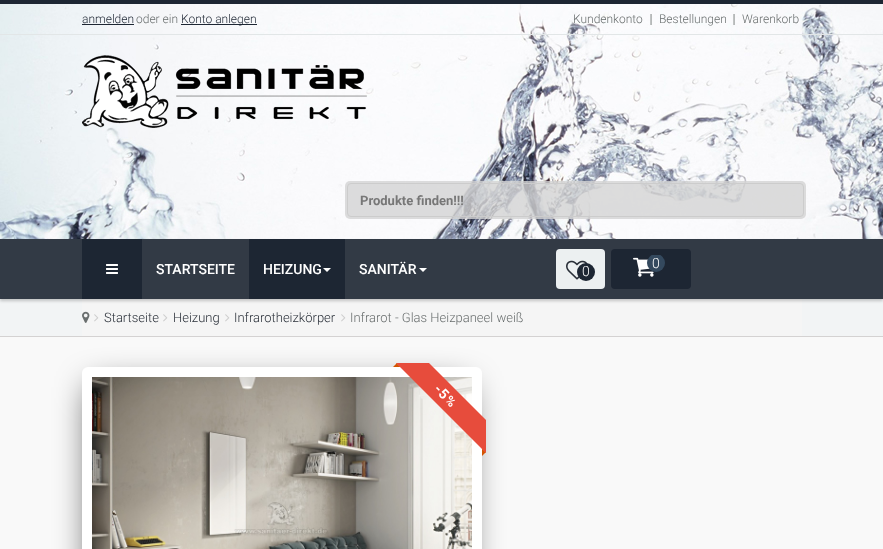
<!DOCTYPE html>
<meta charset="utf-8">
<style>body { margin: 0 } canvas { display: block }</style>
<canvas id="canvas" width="883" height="549"></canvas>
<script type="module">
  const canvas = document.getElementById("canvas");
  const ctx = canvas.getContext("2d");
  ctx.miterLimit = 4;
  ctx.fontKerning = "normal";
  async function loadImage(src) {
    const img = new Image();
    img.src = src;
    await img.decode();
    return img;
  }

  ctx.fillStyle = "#ffffff";
  ctx.fillRect(0, 0, 883, 549);
  ctx.drawImage(await loadImage("img1.png"), 0, 4, 883, 235);
  ctx.fillStyle = "#1d2633";
  ctx.fillRect(0, 0, 883, 4);
  ctx.fillStyle = "#e2e6e7";
  ctx.fillRect(0, 34, 883, 1);
  ctx.font = "300 12px Roboto";
  ctx.fillStyle = "#1d2633";
  ctx.fillText("anmelden", 82, 23);
  ctx.fillRect(82, 24, 52, 1);
  ctx.fillStyle = "#696e6e";
  ctx.fillText("oder ein", 136, 23);
  ctx.fillStyle = "#1d2633";
  ctx.fillRect(181, 24, 76, 1);
  ctx.fillText("Konto anlegen", 181, 23);
  ctx.fillStyle = "#696e6e";
  ctx.fillText("Kundenkonto", 573, 23);
  ctx.drawImage(await loadImage("img2.png"), 650, 14, 2, 11);
  ctx.fillText("Bestellungen", 659, 23);
  ctx.drawImage(await loadImage("img2.png"), 733, 14, 2, 11);
  ctx.fillText("Warenkorb", 742, 23);
  ctx.drawImage(await loadImage("img3.png"), 82, 55, 285, 73);
  ctx.fillStyle = "rgba(211, 211, 211, 0.8)";
  ctx.beginPath();
  ctx.roundRect(345, 181, 461, 38, 5);
  ctx.fill();
  ctx.beginPath();
  ctx.roundRect(347.5, 183.5, 456, 33, 3.5);
  ctx.strokeStyle = "#cccccc";
  ctx.stroke();
  ctx.font = "bold 13px Roboto";
  ctx.fillStyle = "#777777";
  ctx.fillText("Produkte finden!!!", 360, 205);
  ctx.fillStyle = "#f2f4f5";
  ctx.fillRect(0, 299, 883, 37);
  ctx.fillStyle = "#f5f5f5";
  ctx.fillRect(82, 299, 720, 37);
  ctx.fillStyle = "rgba(0, 0, 0, 0.2)";
  ctx.filter = "blur(1.5px)";
  ctx.beginPath();
  ctx.rect(0, 241, 883, 60);
  ctx.fill();
  ctx.filter = "none";
  ctx.fillStyle = "#323a45";
  ctx.fillRect(0, 239, 883, 60);
  ctx.fillStyle = "#1d2633";
  ctx.fillRect(82, 239, 60, 60);
  ctx.drawImage(await loadImage("img4.png"), 106, 264, 12, 10);
  ctx.font = "500 14px Roboto";
  ctx.fillStyle = "#ffffff";
  ctx.fillText("STARTSEITE", 156, 274);
  ctx.fillStyle = "#1d2633";
  ctx.fillRect(249, 239, 96, 60);
  ctx.fillStyle = "#ffffff";
  ctx.fillText("HEIZUNG", 263, 274);
  ctx.beginPath();
  ctx.moveTo(323, 268);
  ctx.lineTo(331, 268);
  ctx.lineTo(327, 272);
  ctx.closePath();
  ctx.fill();
  ctx.fillText("SANITÄR", 359, 274);
  ctx.beginPath();
  ctx.moveTo(419, 268);
  ctx.lineTo(427, 268);
  ctx.lineTo(423, 272);
  ctx.closePath();
  ctx.fill();
  ctx.fillStyle = "#1d2633";
  ctx.beginPath();
  ctx.roundRect(611, 249, 80, 40, 4);
  ctx.fill();
  ctx.drawImage(await loadImage("img5.png"), 633, 257, 21, 20);
  ctx.save();
  ctx.beginPath();
  ctx.rect(633, 255, 36, 26);
  ctx.clip();
  ctx.fillStyle = "#34495e";
  ctx.beginPath();
  ctx.arc(656, 263, 9, 0, Math.PI * 2);
  ctx.fill();
  ctx.restore();
  ctx.font = "300 14px Roboto";
  ctx.fillStyle = "#ffffff";
  ctx.fillText("0", 652, 268);
  ctx.fillStyle = "#ecf0f1";
  ctx.beginPath();
  ctx.roundRect(556, 249, 49, 40, 4);
  ctx.fill();
  ctx.drawImage(await loadImage("img6.png"), 566, 260, 22, 20);
  ctx.fillStyle = "#1d2633";
  ctx.beginPath();
  ctx.arc(586, 272, 9, 0, Math.PI * 2);
  ctx.fill();
  ctx.fillStyle = "#ffffff";
  ctx.fillText("0", 582, 276);
  ctx.fillStyle = "#d4d2d2";
  ctx.fillRect(0, 336, 883, 1);
  ctx.drawImage(await loadImage("img7.png"), 82, 311, 8, 12);
  ctx.drawImage(await loadImage("img8.png"), 94, 314, 5, 8);
  ctx.font = "300 13px Roboto";
  ctx.fillStyle = "#292f38";
  ctx.fillText("Startseite", 104, 322);
  ctx.drawImage(await loadImage("img8.png"), 163, 314, 5, 8);
  ctx.fillText("Heizung", 173, 322);
  ctx.drawImage(await loadImage("img8.png"), 225, 314, 5, 8);
  ctx.fillText("Infrarotheizkörper", 234, 322);
  ctx.drawImage(await loadImage("img8.png"), 341, 314, 5, 8);
  ctx.fillStyle = "#696e6e";
  ctx.fillText("Infrarot - Glas Heizpaneel weiß", 350, 322);
  ctx.fillStyle = "#f9f9f9";
  ctx.fillRect(0, 337, 883, 212);
  ctx.fillStyle = "rgba(0, 0, 0, 0.75)";
  ctx.filter = "blur(17px)";
  ctx.beginPath();
  ctx.rect(91, 387, 376, 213);
  ctx.fill();
  ctx.filter = "none";
  ctx.fillStyle = "#ffffff";
  ctx.beginPath();
  ctx.roundRect(82, 367, 400, 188, 6);
  ctx.fill();
  ctx.drawImage(await loadImage("img9.png"), 92, 377, 380, 172);
  ctx.drawImage(await loadImage("img10.png"), 393, 363, 7, 4);
  ctx.drawImage(await loadImage("img11.png"), 482, 449, 4, 7);
  ctx.save();
  ctx.beginPath();
  ctx.rect(386, 363, 100, 100);
  ctx.clip();
  ctx.fillStyle = "#e74c3c";
  ctx.beginPath();
  ctx.moveTo(404, 338);
  ctx.lineTo(503, 437);
  ctx.lineTo(487, 454);
  ctx.lineTo(388, 355);
  ctx.closePath();
  ctx.fill();
  ctx.restore();
  ctx.letterSpacing = "1px";
  ctx.font = "bold 14px Roboto";
  ctx.save();
  ctx.translate(433, 390);
  ctx.rotate(45 * Math.PI / 180);
  ctx.fillText("-5", 0, 0);
  ctx.restore();
  ctx.font = "bold 13px Roboto";
  ctx.save();
  ctx.translate(444, 401);
  ctx.rotate(45 * Math.PI / 180);
  ctx.fillText("%", 0, 0);
  ctx.restore();
</script>
